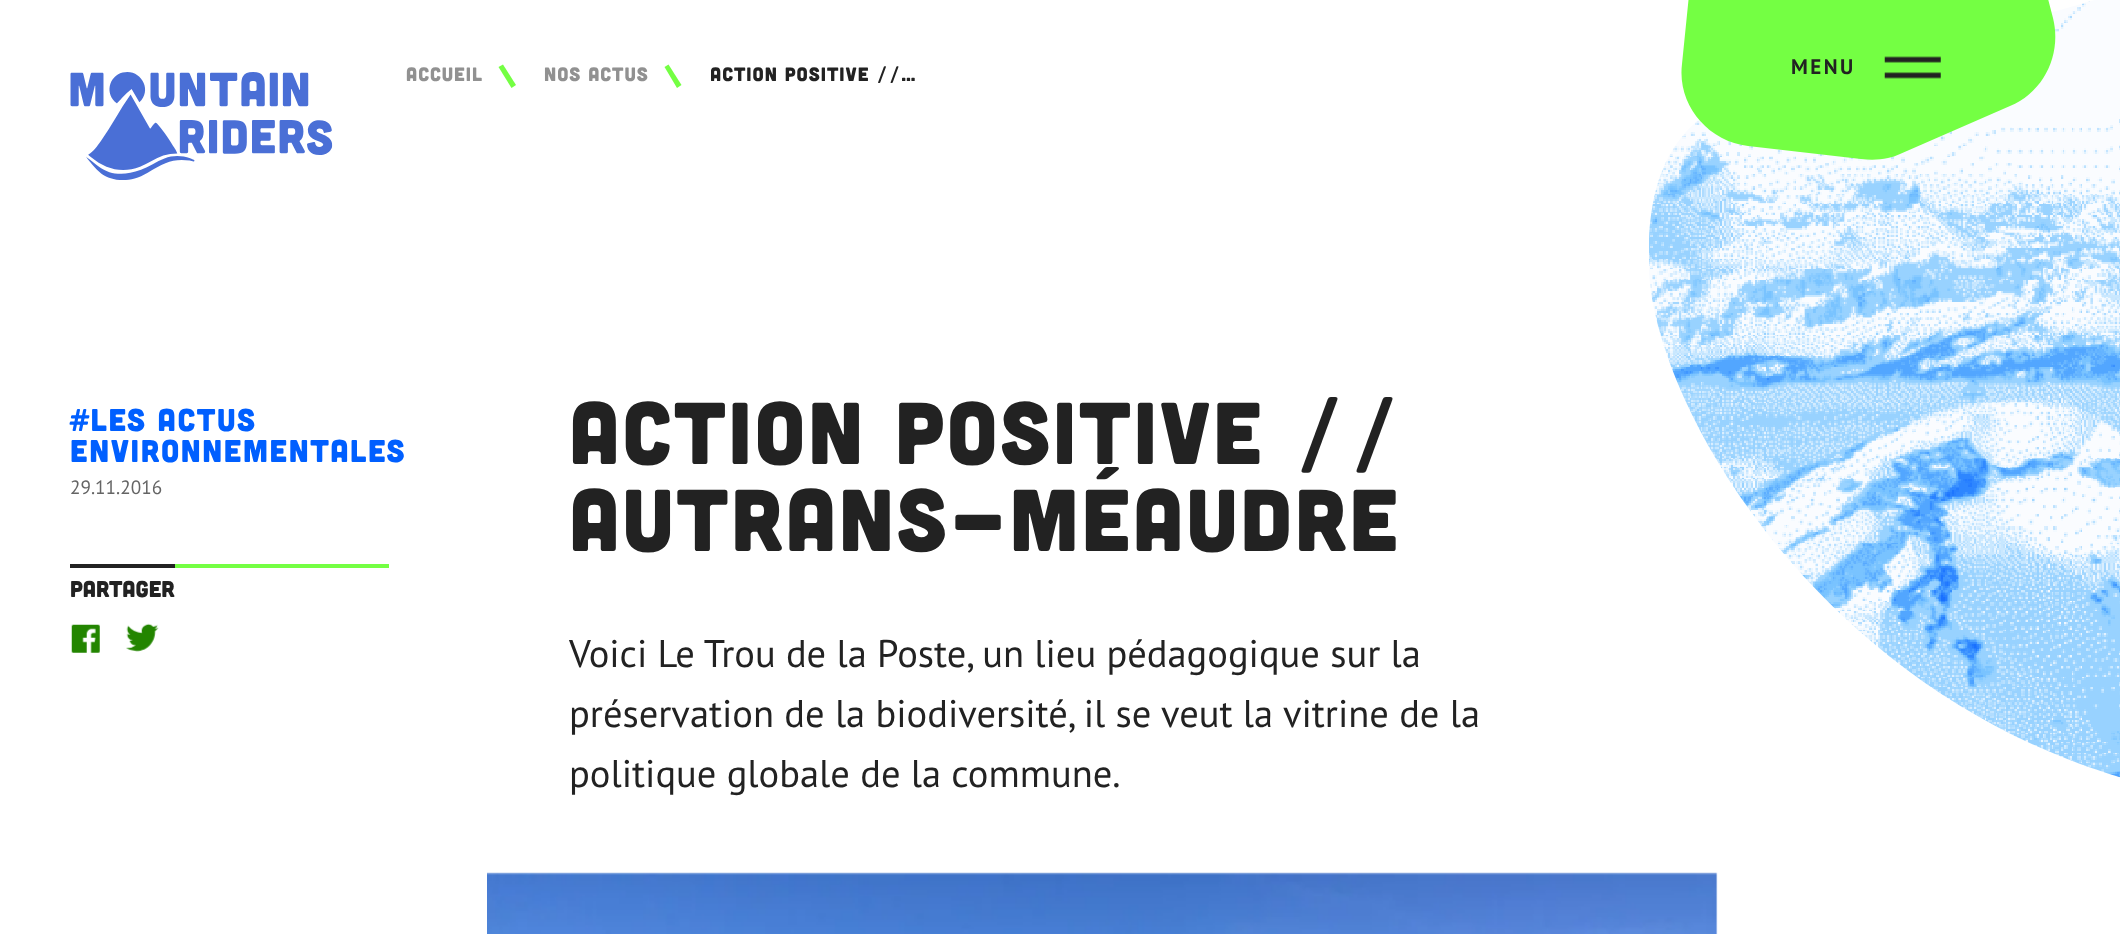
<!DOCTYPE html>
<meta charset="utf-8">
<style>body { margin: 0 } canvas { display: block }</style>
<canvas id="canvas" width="2120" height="934"></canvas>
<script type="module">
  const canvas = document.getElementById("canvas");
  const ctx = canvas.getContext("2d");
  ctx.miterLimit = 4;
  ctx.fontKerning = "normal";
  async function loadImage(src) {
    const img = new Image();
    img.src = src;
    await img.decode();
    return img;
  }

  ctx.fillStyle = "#ffffff";
  ctx.fillRect(0, 0, 2120, 934);
  ctx.letterSpacing = "1px";
  ctx.font = "19.25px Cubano";
  ctx.fillStyle = "#919191";
  ctx.fillText("Accueil", 406, 81);
  ctx.fillStyle = "#74ff43";
  ctx.beginPath();
  ctx.moveTo(503, 64.5);
  ctx.lineTo(516, 85);
  ctx.lineTo(511.5, 88);
  ctx.lineTo(498.5, 67);
  ctx.closePath();
  ctx.fill();
  ctx.fillStyle = "#919191";
  ctx.fillText("Nos actus", 544, 81);
  ctx.fillStyle = "#74ff43";
  ctx.beginPath();
  ctx.moveTo(668.5, 64.5);
  ctx.lineTo(681.5, 85);
  ctx.lineTo(677, 88);
  ctx.lineTo(664.5, 67);
  ctx.closePath();
  ctx.fill();
  ctx.save();
  ctx.beginPath();
  ctx.rect(711, 53, 210, 42);
  ctx.clip();
  ctx.fillStyle = "#222222";
  ctx.fillText("Action Positive //…", 710, 81);
  ctx.restore();
  ctx.drawImage(await loadImage("img3.png"), 1649, 0, 471, 778);
  ctx.beginPath();
  ctx.moveTo(2053, 18);
  ctx.lineTo(2029, -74);
  ctx.bezierCurveTo(2023, -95, 2010, -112, 1993, -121);
  ctx.bezierCurveTo(1975, -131, 1955, -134, 1935, -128);
  ctx.lineTo(1742, -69);
  ctx.bezierCurveTo(1713, -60, 1692, -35, 1689, -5);
  ctx.lineTo(1682, 64);
  ctx.bezierCurveTo(1677, 104, 1707, 141, 1748, 146);
  ctx.lineTo(1861, 159);
  ctx.bezierCurveTo(1870, 160, 1879, 160, 1888, 158);
  ctx.bezierCurveTo(1892, 157, 1896, 156, 1900, 154);
  ctx.lineTo(2010, 106);
  ctx.bezierCurveTo(2044, 92, 2062, 54, 2053, 18);
  ctx.closePath();
  ctx.fill();
  ctx.letterSpacing = "2.5px";
  ctx.font = "bold 21px PT Sans";
  ctx.fillStyle = "#222222";
  ctx.fillText("MENU", 1791, 74);
  ctx.drawImage(await loadImage("img1.png"), 1884, 56, 57, 23);
  ctx.drawImage(await loadImage("img2.png"), 70, 72, 263, 108);
  ctx.letterSpacing = "1.6px";
  ctx.font = "31.5px Cubano";
  ctx.fillStyle = "#005fff";
  ctx.fillText("#Les actus", 70, 431);
  ctx.fillText("environnementales", 70, 462);
  ctx.letterSpacing = "0px";
  ctx.font = "19.25px PT Sans";
  ctx.fillStyle = "#656565";
  ctx.fillText("29.11.2016", 70, 494);
  ctx.fillStyle = "#74ff43";
  ctx.fillRect(175, 564, 214, 4);
  ctx.fillStyle = "#222222";
  ctx.fillRect(70, 564, 105, 4);
  ctx.font = "22.75px Cubano";
  ctx.fillText("Partager", 70, 597);
  ctx.drawImage(await loadImage("img4.png"), 71, 624, 29, 29);
  ctx.drawImage(await loadImage("img5.png"), 126, 623, 33, 29);
  ctx.letterSpacing = "2.6px";
  ctx.font = "87.5px Cubano";
  ctx.fillText("Action Positive //", 569, 464);
  ctx.fillText("Autrans-Méaudre", 569, 551);
  ctx.letterSpacing = "0px";
  ctx.font = "38.5px PT Sans";
  ctx.fillText("Voici Le Trou de la Poste, un lieu pédagogique sur la", 569, 667);
  ctx.fillText("préservation de la biodiversité, il se veut la vitrine de la", 569, 727);
  ctx.fillText("politique globale de la commune.", 569, 787);
  ctx.drawImage(await loadImage("img6.png"), 487, 872, 1231, 62);
</script>
